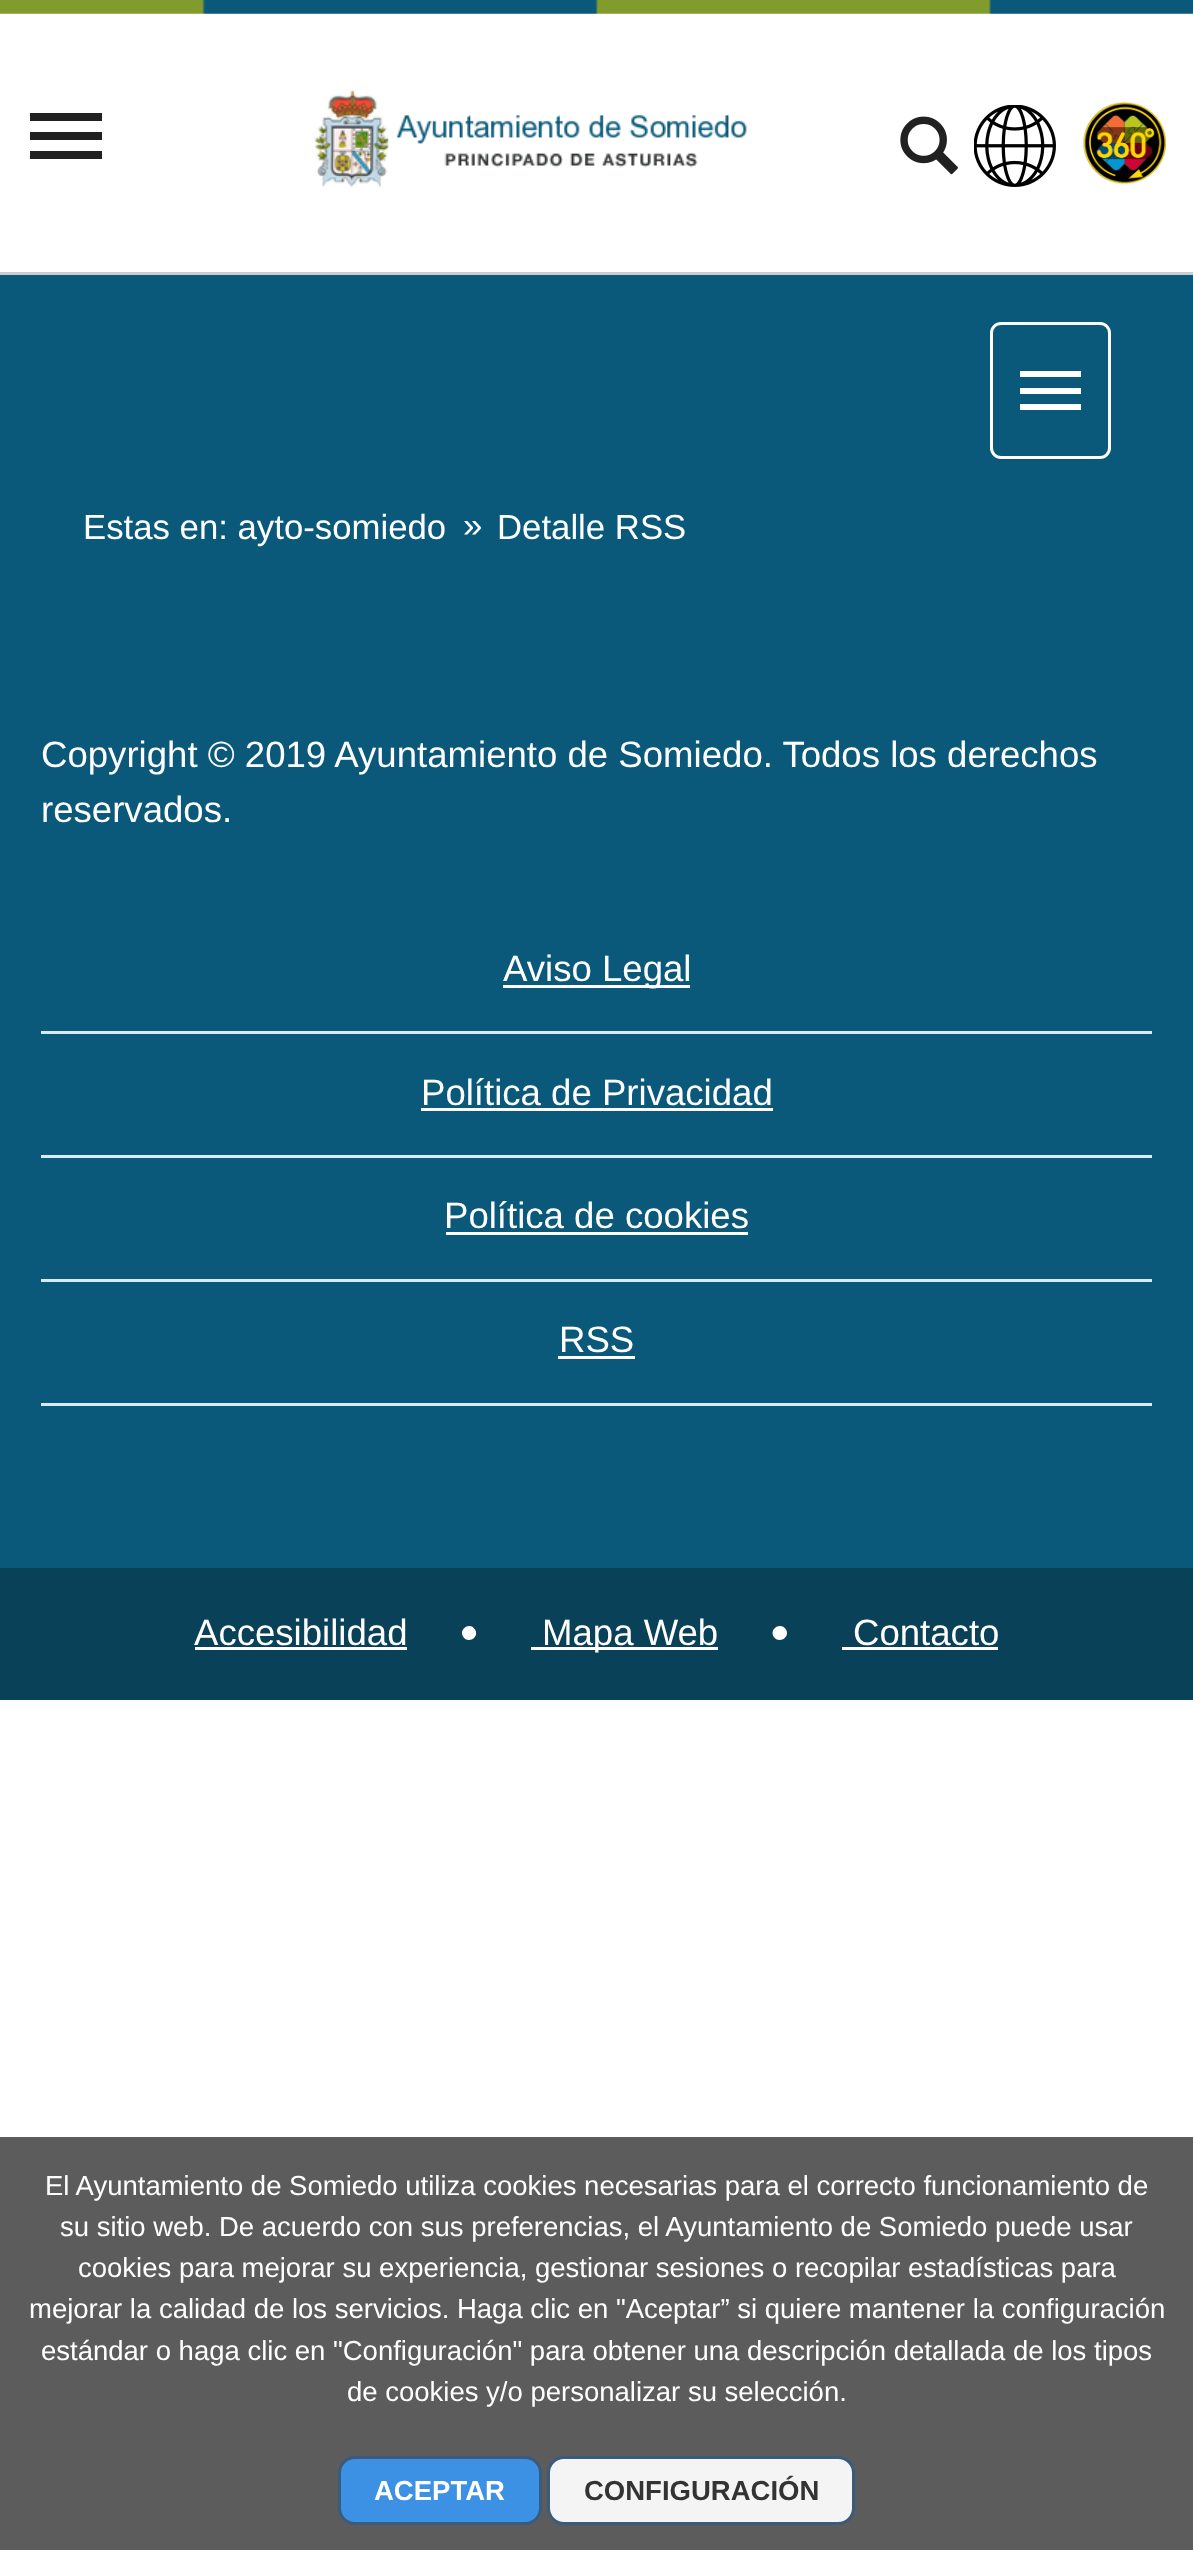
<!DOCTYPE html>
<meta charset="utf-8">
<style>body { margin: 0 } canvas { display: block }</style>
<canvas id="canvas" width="1193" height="2550"></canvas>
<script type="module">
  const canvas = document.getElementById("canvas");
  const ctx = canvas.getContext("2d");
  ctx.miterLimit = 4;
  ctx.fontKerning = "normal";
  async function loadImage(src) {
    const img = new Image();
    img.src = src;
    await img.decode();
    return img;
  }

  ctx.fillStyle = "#ffffff";
  ctx.fillRect(0, 0, 1193, 2550);
  ctx.drawImage(await loadImage("img1.png"), 0, 0, 1193, 14);
  ctx.fillStyle = "#cccccc";
  ctx.fillRect(0, 272, 1193, 3);
  ctx.fillStyle = "#212121";
  ctx.fillRect(30, 113, 72, 8);
  ctx.fillRect(30, 132, 72, 8);
  ctx.fillRect(30, 151, 72, 8);
  ctx.drawImage(await loadImage("img2.png"), 314, 90, 433, 98);
  ctx.drawImage(await loadImage("img3.png"), 900, 116, 58, 59);
  ctx.drawImage(await loadImage("img4.png"), 974, 105, 82, 82);
  ctx.drawImage(await loadImage("img5.png"), 1083, 101, 83, 84);
  ctx.fillStyle = "#0a597a";
  ctx.fillRect(0, 275, 1193, 1293);
  ctx.beginPath();
  ctx.roundRect(991.5, 323.5, 118, 134, 9.5);
  ctx.strokeStyle = "#ffffff";
  ctx.lineWidth = 3;
  ctx.stroke();
  ctx.fillStyle = "#ffffff";
  ctx.fillRect(1020, 371, 61, 6);
  ctx.fillRect(1020, 388, 61, 6);
  ctx.fillRect(1020, 404, 61, 6);
  ctx.font = "34.75px Liberation Sans";
  ctx.fillText("Estas en: ayto-somiedo", 83, 539);
  ctx.fillText("»", 463, 537);
  ctx.fillText("Detalle RSS", 497, 539);
  ctx.font = "36.6px Liberation Sans";
  ctx.fillText("Copyright © 2019 Ayuntamiento de Somiedo. Todos los derechos", 41, 767);
  ctx.fillText("reservados.", 41, 822);
  ctx.fillStyle = "#d7ebf5";
  ctx.fillRect(41, 1031, 1111, 3);
  ctx.fillStyle = "#ffffff";
  ctx.fillRect(503, 985, 187, 3);
  ctx.fillText("Aviso Legal", 503, 981);
  ctx.fillStyle = "#d7ebf5";
  ctx.fillRect(41, 1155, 1111, 3);
  ctx.fillStyle = "#ffffff";
  ctx.fillText("Política de Privacidad", 421, 1105);
  ctx.fillRect(421, 1108, 352, 3);
  ctx.fillStyle = "#d7ebf5";
  ctx.fillRect(41, 1279, 1111, 3);
  ctx.fillStyle = "#ffffff";
  ctx.fillText("Política de cookies", 444, 1228);
  ctx.fillRect(446, 1232, 302, 3);
  ctx.fillStyle = "#d7ebf5";
  ctx.fillRect(41, 1403, 1111, 3);
  ctx.fillStyle = "#ffffff";
  ctx.fillText("RSS", 559, 1352);
  ctx.fillRect(558, 1356, 77, 3);
  ctx.fillStyle = "#094158";
  ctx.fillRect(0, 1568, 1193, 132);
  ctx.fillStyle = "#ffffff";
  ctx.fillText("Accesibilidad", 194, 1645);
  ctx.fillRect(195, 1647, 212, 3);
  ctx.fillRect(531, 1647, 187, 3);
  ctx.fillText("Mapa Web", 542, 1645);
  ctx.beginPath();
  ctx.moveTo(475, 1629.5);
  ctx.bezierCurveTo(480, 1637.5, 467.5, 1644.5, 463, 1636.5);
  ctx.bezierCurveTo(458.5, 1628.5, 470.5, 1621.5, 475, 1629.5);
  ctx.closePath();
  ctx.fill();
  ctx.fillText("Contacto", 853, 1645);
  ctx.fillRect(842, 1647, 156, 3);
  ctx.beginPath();
  ctx.moveTo(786, 1629.5);
  ctx.bezierCurveTo(790.5, 1637.5, 778.5, 1644.5, 773.5, 1636.5);
  ctx.bezierCurveTo(769, 1628.5, 781, 1621.5, 786, 1629.5);
  ctx.closePath();
  ctx.fill();
  ctx.fillStyle = "#5c5c5c";
  ctx.fillRect(0, 2137, 1193, 413);
  ctx.font = "27.5px Liberation Sans";
  ctx.fillStyle = "#ffffff";
  ctx.fillText("El Ayuntamiento de Somiedo utiliza cookies necesarias para el correcto funcionamiento de", 45, 2195);
  ctx.fillText("su sitio web. De acuerdo con sus preferencias, el Ayuntamiento de Somiedo puede usar", 60, 2236);
  ctx.fillText("cookies para mejorar su experiencia, gestionar sesiones o recopilar estadísticas para", 78, 2277);
  ctx.fillText("mejorar la calidad de los servicios. Haga clic en \"Aceptar” si quiere mantener la configuración", 29, 2318);
  ctx.fillText("estándar o haga clic en \"Configuración\" para obtener una descripción detallada de los tipos", 41, 2360);
  ctx.fillText("de cookies y/o personalizar su selección.", 347, 2401);
  ctx.fillStyle = "#3d91e5";
  ctx.beginPath();
  ctx.roundRect(339.5, 2457.5, 201, 66, 15.5);
  ctx.fill();
  ctx.strokeStyle = "#395c7d";
  ctx.stroke();
  ctx.font = "bold 27.5px Liberation Sans";
  ctx.fillStyle = "#ffffff";
  ctx.fillText("ACEPTAR", 374, 2500);
  ctx.fillStyle = "#f4f4f4";
  ctx.beginPath();
  ctx.roundRect(548.5, 2457.5, 305, 66, 15.5);
  ctx.fill();
  ctx.stroke();
  ctx.fillStyle = "#333333";
  ctx.fillText("CONFIGURACIÓN", 584, 2500);
</script>
